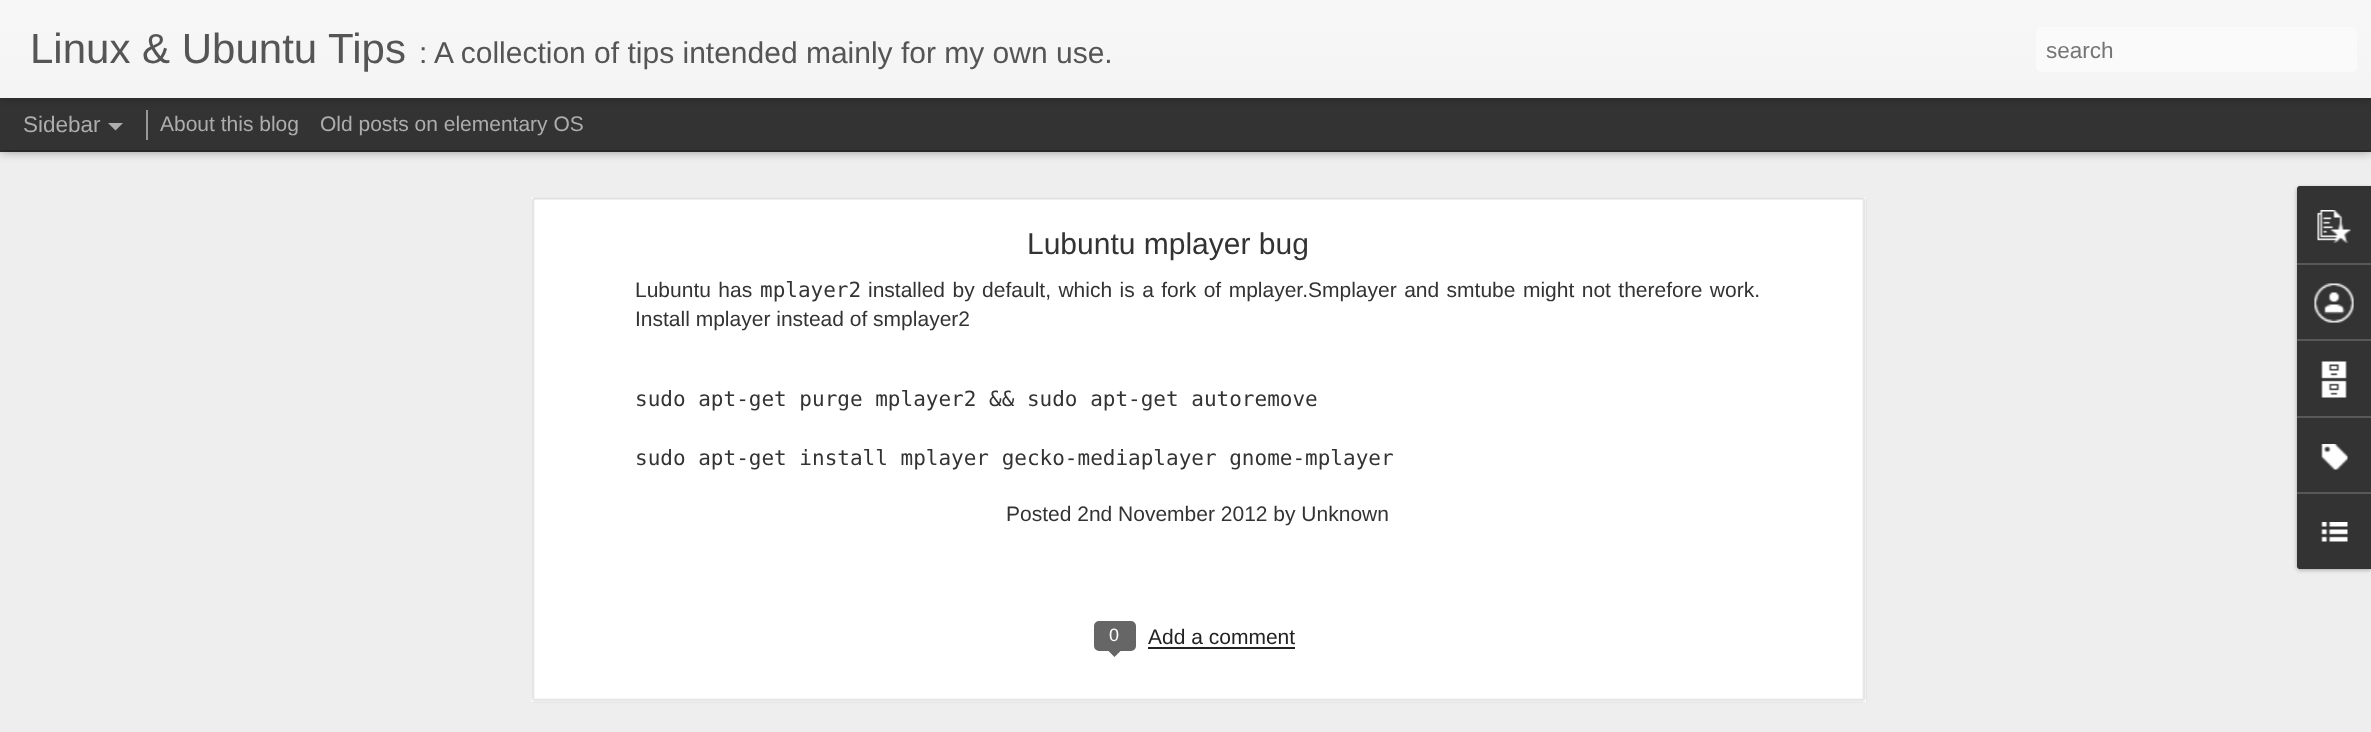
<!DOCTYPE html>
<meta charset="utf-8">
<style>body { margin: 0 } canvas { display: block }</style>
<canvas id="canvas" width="2371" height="732"></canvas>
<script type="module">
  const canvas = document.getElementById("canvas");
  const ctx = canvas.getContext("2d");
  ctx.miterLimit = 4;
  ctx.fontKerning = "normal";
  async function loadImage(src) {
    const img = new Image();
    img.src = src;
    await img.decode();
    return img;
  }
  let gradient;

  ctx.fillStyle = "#333333";
  ctx.fillRect(0, 0, 2371, 732);
  ctx.fillStyle = "#eeeeee";
  ctx.fillRect(0, 152, 2371, 580);
  ctx.fillStyle = "rgba(0, 0, 0, 0.5)";
  ctx.filter = "blur(6px)";
  ctx.beginPath();
  ctx.rect(0, 98, 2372, 52);
  ctx.fill();
  ctx.filter = "none";
  ctx.fillStyle = "#333333";
  ctx.fillRect(0, 98, 2371, 52);
  ctx.fillStyle = "#999999";
  ctx.fillRect(146, 110, 2, 30);
  ctx.fillStyle = "rgba(0, 0, 0, 0.3)";
  ctx.filter = "blur(4px)";
  ctx.beginPath();
  ctx.rect(0, 0, 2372, 98);
  ctx.fill();
  ctx.filter = "none";
  gradient = ctx.createLinearGradient(0, 0, 0, 98);
  gradient.addColorStop(0, "#f7f7f7");
  gradient.addColorStop(1, "#f4f4f4");
  ctx.fillStyle = gradient;
  ctx.fillRect(0, 0, 2371, 98);
  ctx.font = "42px Liberation Sans";
  ctx.fillStyle = "#555555";
  ctx.fillText("Linux & Ubuntu Tips", 30, 63);
  ctx.font = "30px Liberation Sans";
  ctx.fillText(": A collection of tips intended mainly for my own use.", 419, 63);
  ctx.fillStyle = "#fafafa";
  ctx.beginPath();
  ctx.roundRect(2036, 27, 321, 45, 5);
  ctx.fill();
  ctx.font = "22.5px Liberation Sans";
  ctx.fillStyle = "#757575";
  ctx.fillText("search", 2046, 58);
  ctx.fillStyle = "#adadad";
  ctx.fillText("Sidebar", 23, 132);
  ctx.beginPath();
  ctx.moveTo(108, 123);
  ctx.lineTo(123, 123);
  ctx.lineTo(115.5, 130.5);
  ctx.closePath();
  ctx.fill();
  ctx.font = "21px Liberation Sans";
  ctx.fillText("About this blog", 160, 131);
  ctx.fillText("Old posts on elementary OS", 320, 131);
  ctx.fillStyle = "#ffffff";
  ctx.fillRect(531, 197, 1335, 505);
  ctx.drawImage(await loadImage("img1.png"), 531, 197, 1336, 506);
  ctx.font = "30px Liberation Sans";
  ctx.fillStyle = "#333333";
  ctx.fillText("Lubuntu mplayer bug", 1027, 254);
  ctx.wordSpacing = "1.6px";
  ctx.font = "21px Liberation Sans";
  ctx.fillText("Lubuntu has", 635, 297);
  ctx.wordSpacing = "0px";
  ctx.font = "21px DejaVu Sans Mono";
  ctx.fillText("mplayer2", 760, 297);
  ctx.wordSpacing = "1.6px";
  ctx.font = "21px Liberation Sans";
  ctx.fillText("installed by default, which is a fork of mplayer.Smplayer and smtube might not therefore work.", 868, 297);
  ctx.wordSpacing = "0px";
  ctx.fillText("Install mplayer instead of smplayer2", 635, 326);
  ctx.font = "21px DejaVu Sans Mono";
  ctx.fillText("sudo apt-get purge mplayer2 && sudo apt-get autoremove", 635, 406);
  ctx.fillText("sudo apt-get install mplayer gecko-mediaplayer gnome-mplayer", 635, 465);
  ctx.font = "21px Liberation Sans";
  ctx.fillText("Posted 2nd November 2012 by Unknown", 1006, 521);
  ctx.fillStyle = "#666666";
  ctx.beginPath();
  ctx.roundRect(1095, 622, 40, 28, 4);
  ctx.fill();
  ctx.strokeStyle = "#666666";
  ctx.lineWidth = 2;
  ctx.stroke();
  ctx.font = "18px Liberation Sans";
  ctx.fillStyle = "#ffffff";
  ctx.fillText("0", 1109, 641);
  ctx.fillStyle = "#666666";
  ctx.beginPath();
  ctx.moveTo(1107, 649.5);
  ctx.lineTo(1122, 649.5);
  ctx.lineTo(1114.5, 657);
  ctx.closePath();
  ctx.fill();
  ctx.font = "21px Liberation Sans";
  ctx.fillStyle = "#222222";
  ctx.fillText("Add a comment", 1148, 644);
  ctx.fillRect(1148, 647, 147, 2);
  ctx.fillStyle = "rgba(0, 0, 0, 0.3)";
  ctx.filter = "blur(2px)";
  ctx.beginPath();
  ctx.roundRect(2297, 188, 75, 382, 3);
  ctx.fill();
  ctx.filter = "none";
  ctx.fillStyle = "#333333";
  ctx.beginPath();
  ctx.moveTo(2300, 186);
  ctx.lineTo(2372, 186);
  ctx.lineTo(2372, 569);
  ctx.lineTo(2300, 569);
  ctx.bezierCurveTo(2298.5, 569, 2297, 567.5, 2297, 566);
  ctx.lineTo(2297, 189);
  ctx.bezierCurveTo(2297, 187.5, 2298.5, 186, 2300, 186);
  ctx.closePath();
  ctx.fill();
  ctx.beginPath();
  ctx.moveTo(2300, 186);
  ctx.lineTo(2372, 186);
  ctx.lineTo(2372, 263);
  ctx.lineTo(2297, 263);
  ctx.lineTo(2297, 189);
  ctx.bezierCurveTo(2297, 187.5, 2298.5, 186, 2300, 186);
  ctx.closePath();
  ctx.fill();
  ctx.drawImage(await loadImage("img2.png"), 2317, 210, 34, 33);
  ctx.fillStyle = "#585858";
  ctx.fillRect(2297, 263, 74, 2);
  ctx.drawImage(await loadImage("img3.png"), 2314, 283, 40, 40);
  ctx.fillRect(2297, 339, 74, 2);
  ctx.drawImage(await loadImage("img4.png"), 2321, 361, 26, 37);
  ctx.fillRect(2297, 416, 74, 2);
  ctx.drawImage(await loadImage("img5.png"), 2321, 444, 27, 26);
  ctx.fillStyle = "#333333";
  ctx.beginPath();
  ctx.moveTo(2297, 492);
  ctx.lineTo(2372, 492);
  ctx.lineTo(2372, 569);
  ctx.lineTo(2300, 569);
  ctx.bezierCurveTo(2298.5, 569, 2297, 567.5, 2297, 566);
  ctx.closePath();
  ctx.fill();
  ctx.fillStyle = "#585858";
  ctx.fillRect(2297, 492, 74, 2);
  ctx.drawImage(await loadImage("img6.png"), 2321, 522, 27, 20);
</script>
